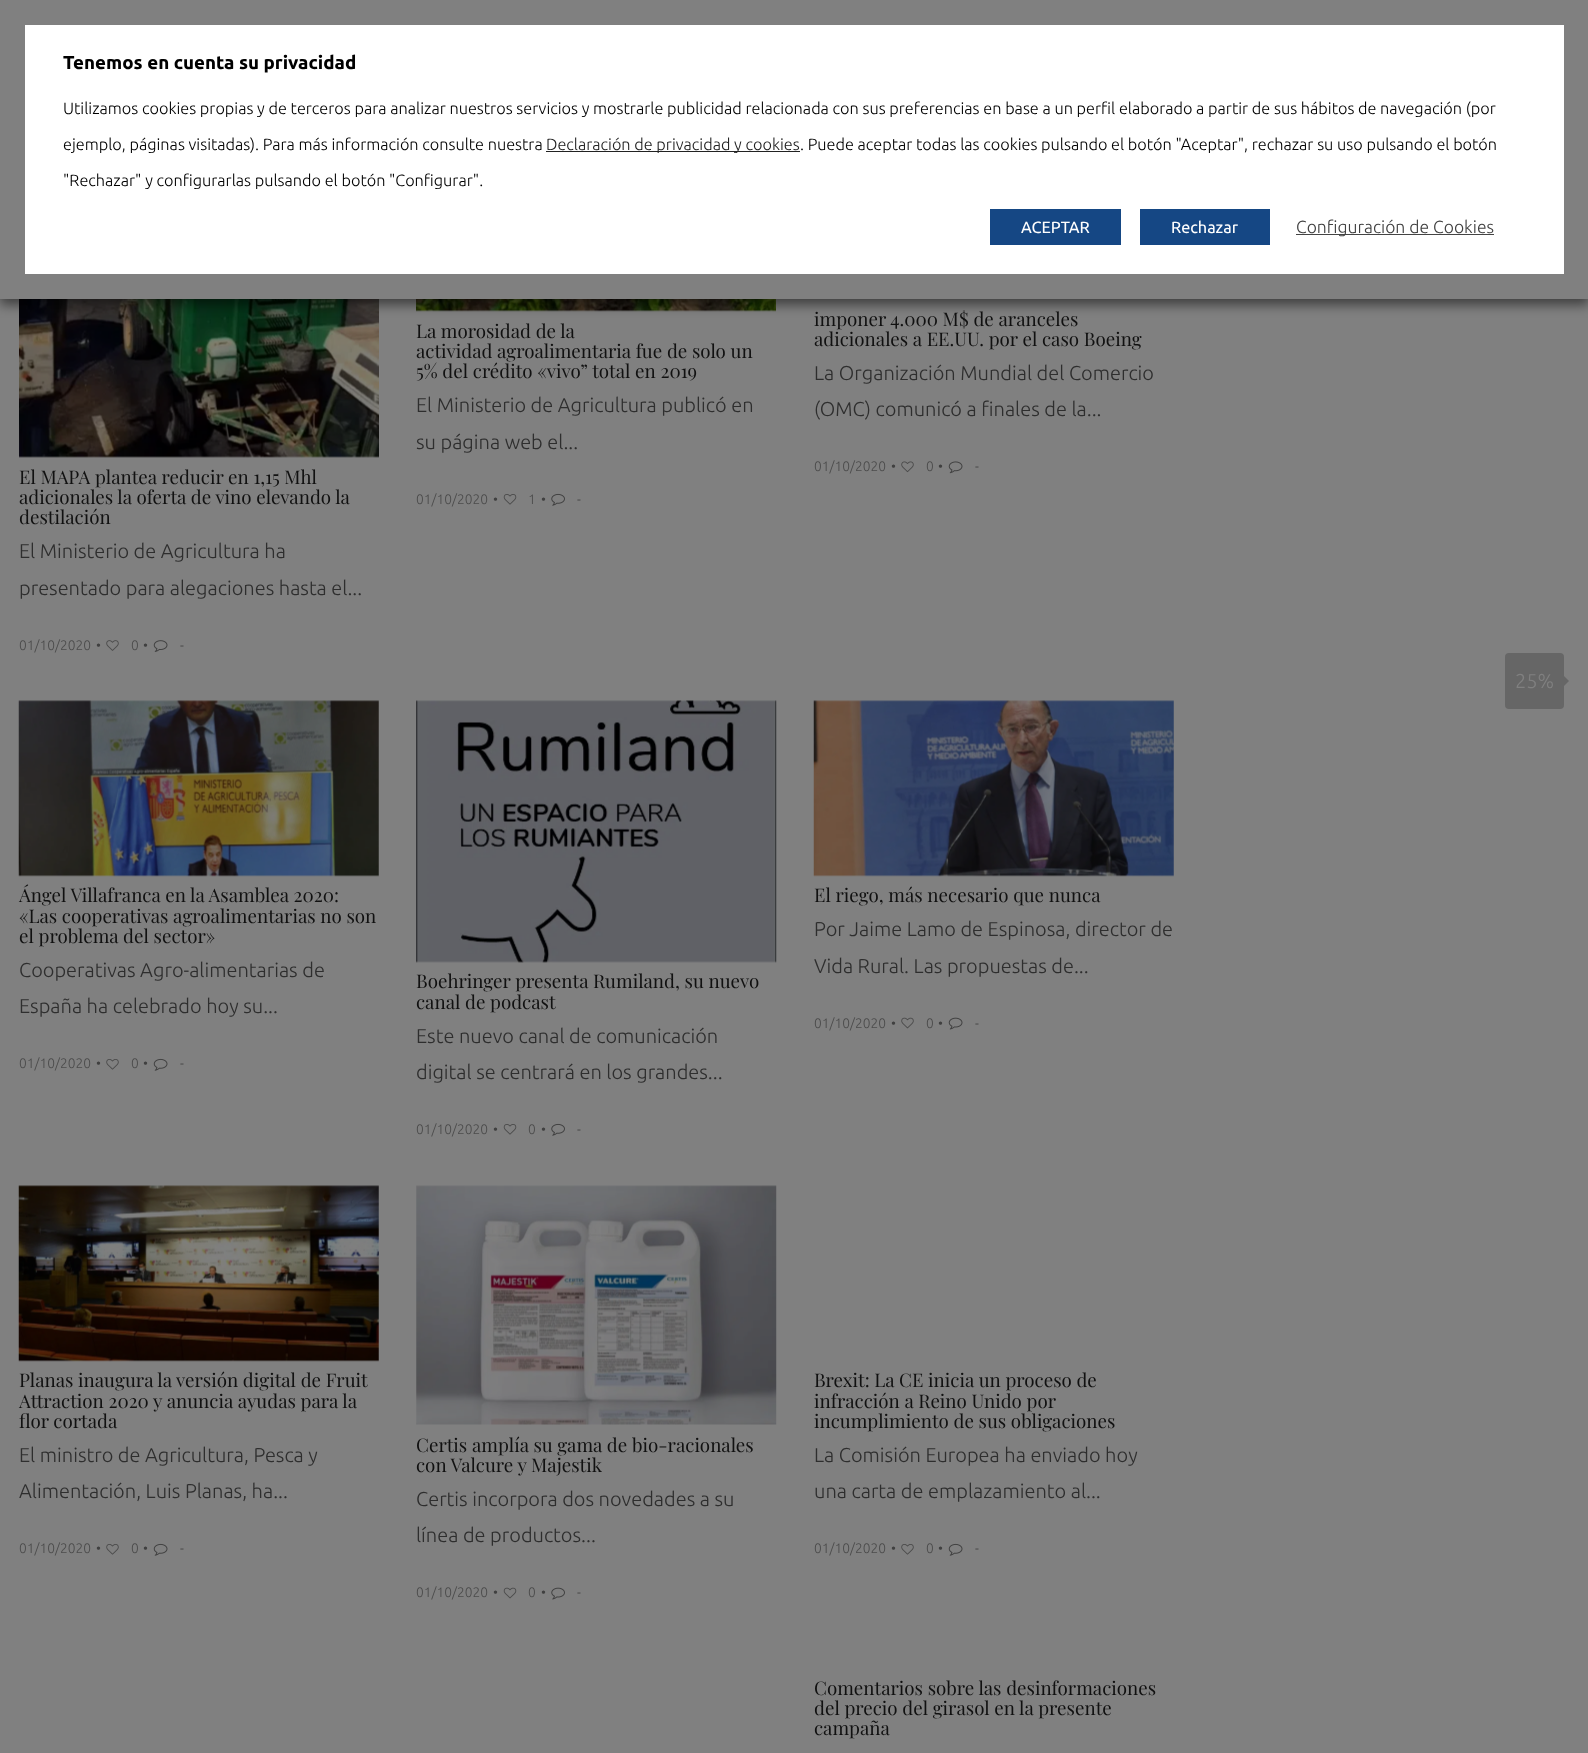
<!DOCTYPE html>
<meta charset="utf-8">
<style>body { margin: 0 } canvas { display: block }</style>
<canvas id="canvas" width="1588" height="1753"></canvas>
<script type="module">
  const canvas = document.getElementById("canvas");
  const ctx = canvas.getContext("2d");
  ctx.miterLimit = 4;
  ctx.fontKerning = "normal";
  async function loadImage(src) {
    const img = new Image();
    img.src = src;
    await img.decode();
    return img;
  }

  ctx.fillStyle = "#808080";
  ctx.fillRect(0, 0, 1588, 1753);
  ctx.drawImage(await loadImage("img1.png"), 416, 299, 360, 13);
  ctx.drawImage(await loadImage("img6.png"), 19, 299, 360, 159);
  ctx.fillStyle = "rgba(0, 0, 0, 0.5)";
  ctx.filter = "blur(6px)";
  ctx.beginPath();
  ctx.rect(0, 6, 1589, 299);
  ctx.fill();
  ctx.filter = "none";
  ctx.fillStyle = "#ffffff";
  ctx.beginPath();
  ctx.rect(12.5, 12.5, 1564, 274);
  ctx.fill();
  ctx.strokeStyle = "#808080";
  ctx.lineWidth = 25;
  ctx.stroke();
  ctx.font = "bold 18.75px Ubuntu";
  ctx.fillStyle = "#000000";
  ctx.fillText("Tenemos en cuenta su privacidad", 63, 69);
  ctx.font = "300 16.25px Ubuntu";
  ctx.fillText("Utilizamos cookies propias y de terceros para analizar nuestros servicios y mostrarle publicidad relacionada con sus preferencias en base a un perfil elaborado a partir de sus hábitos de navegación (por", 63, 114);
  ctx.fillText("ejemplo, páginas visitadas). Para más información consulte nuestra", 63, 150);
  ctx.fillStyle = "#222222";
  ctx.fillRect(546, 151, 254, 1);
  ctx.fillText("Declaración de privacidad y cookies", 546, 150);
  ctx.fillStyle = "#000000";
  ctx.fillText(". Puede aceptar todas las cookies pulsando el botón \"Aceptar\", rechazar su uso pulsando el botón", 800, 150);
  ctx.fillText("\"Rechazar\" y configurarlas pulsando el botón \"Configurar\".", 63, 186);
  ctx.fillStyle = "#154784";
  ctx.fillRect(990, 209, 131, 36);
  ctx.font = "16.25px Ubuntu";
  ctx.fillStyle = "#ffffff";
  ctx.fillText("ACEPTAR", 1021, 233);
  ctx.fillStyle = "#154784";
  ctx.fillRect(1140, 209, 130, 36);
  ctx.fillStyle = "#ffffff";
  ctx.fillText("Rechazar", 1171, 233);
  ctx.fillStyle = "#444444";
  ctx.fillRect(1296, 234, 198, 1);
  ctx.font = "300 17.5px Ubuntu";
  ctx.fillStyle = "#404040";
  ctx.fillText("Configuración de Cookies", 1296, 233);
  ctx.font = "18.75px Playfair Display";
  ctx.fillStyle = "#111111";
  ctx.fillText("La morosidad de la", 416, 338);
  ctx.fillText("actividad agroalimentaria fue de solo un", 416, 358);
  ctx.fillText("5% del crédito «vivo” total en 2019", 416, 378);
  ctx.font = "300 20px Ubuntu";
  ctx.fillStyle = "#2e2e2e";
  ctx.fillText("El Ministerio de Agricultura publicó en", 416, 412);
  ctx.fillText("su página web el...", 416, 449);
  ctx.font = "300 13.75px Ubuntu";
  ctx.fillStyle = "#4b4b4b";
  ctx.fillText("01/10/2020", 416, 504);
  ctx.fillStyle = "#404040";
  ctx.fillText("•", 493, 504);
  ctx.drawImage(await loadImage("img2.png"), 503, 494, 14, 11);
  ctx.fillStyle = "#4b4b4b";
  ctx.fillText("1", 528, 504);
  ctx.fillStyle = "#404040";
  ctx.fillText("•", 541, 504);
  ctx.drawImage(await loadImage("img3.png"), 551, 493, 14, 13);
  ctx.fillText("-", 577, 504);
  ctx.font = "18.75px Playfair Display";
  ctx.fillStyle = "#111111";
  ctx.fillText("imponer 4.000 M$ de aranceles", 814, 326);
  ctx.fillText("adicionales a EE.UU. por el caso Boeing", 814, 346);
  ctx.font = "300 20px Ubuntu";
  ctx.fillStyle = "#2e2e2e";
  ctx.fillText("La Organización Mundial del Comercio", 814, 380);
  ctx.fillText("(OMC) comunicó a finales de la...", 814, 416);
  ctx.font = "300 13.75px Ubuntu";
  ctx.fillStyle = "#4b4b4b";
  ctx.fillText("01/10/2020", 814, 471);
  ctx.fillStyle = "#404040";
  ctx.fillText("•", 891, 471);
  ctx.drawImage(await loadImage("img4.png"), 901, 461, 13, 12);
  ctx.fillStyle = "#4b4b4b";
  ctx.fillText("0", 926, 471);
  ctx.fillStyle = "#404040";
  ctx.fillText("•", 938, 471);
  ctx.drawImage(await loadImage("img5.png"), 948, 461, 15, 13);
  ctx.fillText("-", 975, 471);
  ctx.font = "18.75px Playfair Display";
  ctx.fillStyle = "#111111";
  ctx.fillText("El MAPA plantea reducir en 1,15 Mhl", 19, 484);
  ctx.fillText("adicionales la oferta de vino elevando la", 19, 504);
  ctx.fillText("destilación", 19, 524);
  ctx.font = "300 20px Ubuntu";
  ctx.fillStyle = "#2e2e2e";
  ctx.fillText("El Ministerio de Agricultura ha", 19, 558);
  ctx.fillText("presentado para alegaciones hasta el...", 19, 595);
  ctx.font = "300 13.75px Ubuntu";
  ctx.fillStyle = "#4b4b4b";
  ctx.fillText("01/10/2020", 19, 650);
  ctx.fillStyle = "#404040";
  ctx.fillText("•", 96, 650);
  ctx.drawImage(await loadImage("img7.png"), 106, 640, 13, 11);
  ctx.fillStyle = "#4b4b4b";
  ctx.fillText("0", 131, 650);
  ctx.fillStyle = "#404040";
  ctx.fillText("•", 143, 650);
  ctx.drawImage(await loadImage("img8.png"), 153, 640, 15, 12);
  ctx.fillText("-", 180, 650);
  ctx.drawImage(await loadImage("img9.png"), 18, 700, 361, 177);
  ctx.font = "18.75px Playfair Display";
  ctx.fillStyle = "#111111";
  ctx.fillText("Ángel Villafranca en la Asamblea 2020:", 19, 902);
  ctx.fillText("«Las cooperativas agroalimentarias no son", 19, 923);
  ctx.fillText("el problema del sector»", 19, 943);
  ctx.font = "300 20px Ubuntu";
  ctx.fillStyle = "#2e2e2e";
  ctx.fillText("Cooperativas Agro-alimentarias de", 19, 977);
  ctx.fillText("España ha celebrado hoy su...", 19, 1013);
  ctx.font = "300 13.75px Ubuntu";
  ctx.fillStyle = "#4b4b4b";
  ctx.fillText("01/10/2020", 19, 1068);
  ctx.fillStyle = "#404040";
  ctx.fillText("•", 96, 1068);
  ctx.drawImage(await loadImage("img10.png"), 106, 1059, 13, 11);
  ctx.fillStyle = "#4b4b4b";
  ctx.fillText("0", 131, 1068);
  ctx.fillStyle = "#404040";
  ctx.fillText("•", 143, 1068);
  ctx.drawImage(await loadImage("img11.png"), 153, 1058, 15, 13);
  ctx.fillText("-", 180, 1068);
  ctx.drawImage(await loadImage("img12.png"), 813, 700, 361, 177);
  ctx.font = "18.75px Playfair Display";
  ctx.fillStyle = "#111111";
  ctx.fillText("El riego, más necesario que nunca", 814, 902);
  ctx.font = "300 20px Ubuntu";
  ctx.fillStyle = "#2e2e2e";
  ctx.fillText("Por Jaime Lamo de Espinosa, director de", 814, 936);
  ctx.fillText("Vida Rural. Las propuestas de...", 814, 973);
  ctx.font = "300 13.75px Ubuntu";
  ctx.fillStyle = "#4b4b4b";
  ctx.fillText("01/10/2020", 814, 1028);
  ctx.fillStyle = "#404040";
  ctx.fillText("•", 891, 1028);
  ctx.drawImage(await loadImage("img13.png"), 901, 1017, 13, 12);
  ctx.fillStyle = "#4b4b4b";
  ctx.fillText("0", 926, 1028);
  ctx.fillStyle = "#404040";
  ctx.fillText("•", 938, 1028);
  ctx.drawImage(await loadImage("img14.png"), 948, 1017, 15, 13);
  ctx.fillText("-", 975, 1028);
  ctx.drawImage(await loadImage("img15.png"), 416, 700, 361, 263);
  ctx.font = "18.75px Playfair Display";
  ctx.fillStyle = "#111111";
  ctx.fillText("Boehringer presenta Rumiland, su nuevo", 416, 988);
  ctx.fillText("canal de podcast", 416, 1009);
  ctx.font = "300 20px Ubuntu";
  ctx.fillStyle = "#2e2e2e";
  ctx.fillText("Este nuevo canal de comunicación", 416, 1043);
  ctx.fillText("digital se centrará en los grandes...", 416, 1079);
  ctx.font = "300 13.75px Ubuntu";
  ctx.fillStyle = "#4b4b4b";
  ctx.fillText("01/10/2020", 416, 1134);
  ctx.fillStyle = "#404040";
  ctx.fillText("•", 493, 1134);
  ctx.drawImage(await loadImage("img2.png"), 503, 1124, 14, 11);
  ctx.fillStyle = "#4b4b4b";
  ctx.fillText("0", 528, 1134);
  ctx.fillStyle = "#404040";
  ctx.fillText("•", 541, 1134);
  ctx.drawImage(await loadImage("img3.png"), 551, 1123, 14, 13);
  ctx.fillText("-", 577, 1134);
  ctx.drawImage(await loadImage("img16.png"), 18, 1185, 361, 177);
  ctx.font = "18.75px Playfair Display";
  ctx.fillStyle = "#111111";
  ctx.fillText("Planas inaugura la versión digital de Fruit", 19, 1387);
  ctx.fillText("Attraction 2020 y anuncia ayudas para la", 19, 1408);
  ctx.fillText("flor cortada", 19, 1428);
  ctx.font = "300 20px Ubuntu";
  ctx.fillStyle = "#2e2e2e";
  ctx.fillText("El ministro de Agricultura, Pesca y", 19, 1462);
  ctx.fillText("Alimentación, Luis Planas, ha...", 19, 1498);
  ctx.font = "300 13.75px Ubuntu";
  ctx.fillStyle = "#4b4b4b";
  ctx.fillText("01/10/2020", 19, 1553);
  ctx.fillStyle = "#404040";
  ctx.fillText("•", 96, 1553);
  ctx.drawImage(await loadImage("img10.png"), 106, 1544, 13, 11);
  ctx.fillStyle = "#4b4b4b";
  ctx.fillText("0", 131, 1553);
  ctx.fillStyle = "#404040";
  ctx.fillText("•", 143, 1553);
  ctx.drawImage(await loadImage("img11.png"), 153, 1543, 15, 13);
  ctx.fillText("-", 180, 1553);
  ctx.drawImage(await loadImage("img17.png"), 416, 1185, 361, 240);
  ctx.font = "18.75px Playfair Display";
  ctx.fillStyle = "#111111";
  ctx.fillText("Certis amplía su gama de bio-racionales", 416, 1452);
  ctx.fillText("con Valcure y Majestik", 416, 1472);
  ctx.font = "300 20px Ubuntu";
  ctx.fillStyle = "#2e2e2e";
  ctx.fillText("Certis incorpora dos novedades a su", 416, 1506);
  ctx.fillText("línea de productos...", 416, 1542);
  ctx.font = "300 13.75px Ubuntu";
  ctx.fillStyle = "#4b4b4b";
  ctx.fillText("01/10/2020", 416, 1597);
  ctx.fillStyle = "#404040";
  ctx.fillText("•", 493, 1597);
  ctx.drawImage(await loadImage("img18.png"), 503, 1587, 14, 12);
  ctx.fillStyle = "#4b4b4b";
  ctx.fillText("0", 528, 1597);
  ctx.fillStyle = "#404040";
  ctx.fillText("•", 541, 1597);
  ctx.drawImage(await loadImage("img19.png"), 551, 1587, 14, 13);
  ctx.fillText("-", 577, 1597);
  ctx.font = "18.75px Playfair Display";
  ctx.fillStyle = "#111111";
  ctx.fillText("Brexit: La CE inicia un proceso de", 814, 1387);
  ctx.fillText("infracción a Reino Unido por", 814, 1408);
  ctx.fillText("incumplimiento de sus obligaciones", 814, 1428);
  ctx.font = "300 20px Ubuntu";
  ctx.fillStyle = "#2e2e2e";
  ctx.fillText("La Comisión Europea ha enviado hoy", 814, 1462);
  ctx.fillText("una carta de emplazamiento al...", 814, 1498);
  ctx.font = "300 13.75px Ubuntu";
  ctx.fillStyle = "#4b4b4b";
  ctx.fillText("01/10/2020", 814, 1553);
  ctx.fillStyle = "#404040";
  ctx.fillText("•", 891, 1553);
  ctx.drawImage(await loadImage("img10.png"), 901, 1544, 13, 11);
  ctx.fillStyle = "#4b4b4b";
  ctx.fillText("0", 926, 1553);
  ctx.fillStyle = "#404040";
  ctx.fillText("•", 938, 1553);
  ctx.drawImage(await loadImage("img11.png"), 948, 1543, 15, 13);
  ctx.fillText("-", 975, 1553);
  ctx.font = "18.75px Playfair Display";
  ctx.fillStyle = "#111111";
  ctx.fillText("Comentarios sobre las desinformaciones", 814, 1695);
  ctx.fillText("del precio del girasol en la presente", 814, 1715);
  ctx.fillText("campaña", 814, 1735);
  ctx.fillStyle = "#666666";
  ctx.beginPath();
  ctx.roundRect(1505, 653, 59, 56, 4);
  ctx.fill();
  ctx.font = "300 20px Ubuntu";
  ctx.fillStyle = "#808080";
  ctx.fillText("25%", 1515, 688);
  ctx.fillStyle = "#666666";
  ctx.beginPath();
  ctx.moveTo(1564, 686);
  ctx.lineTo(1564, 676);
  ctx.lineTo(1569, 681);
  ctx.closePath();
  ctx.fill();
</script>
